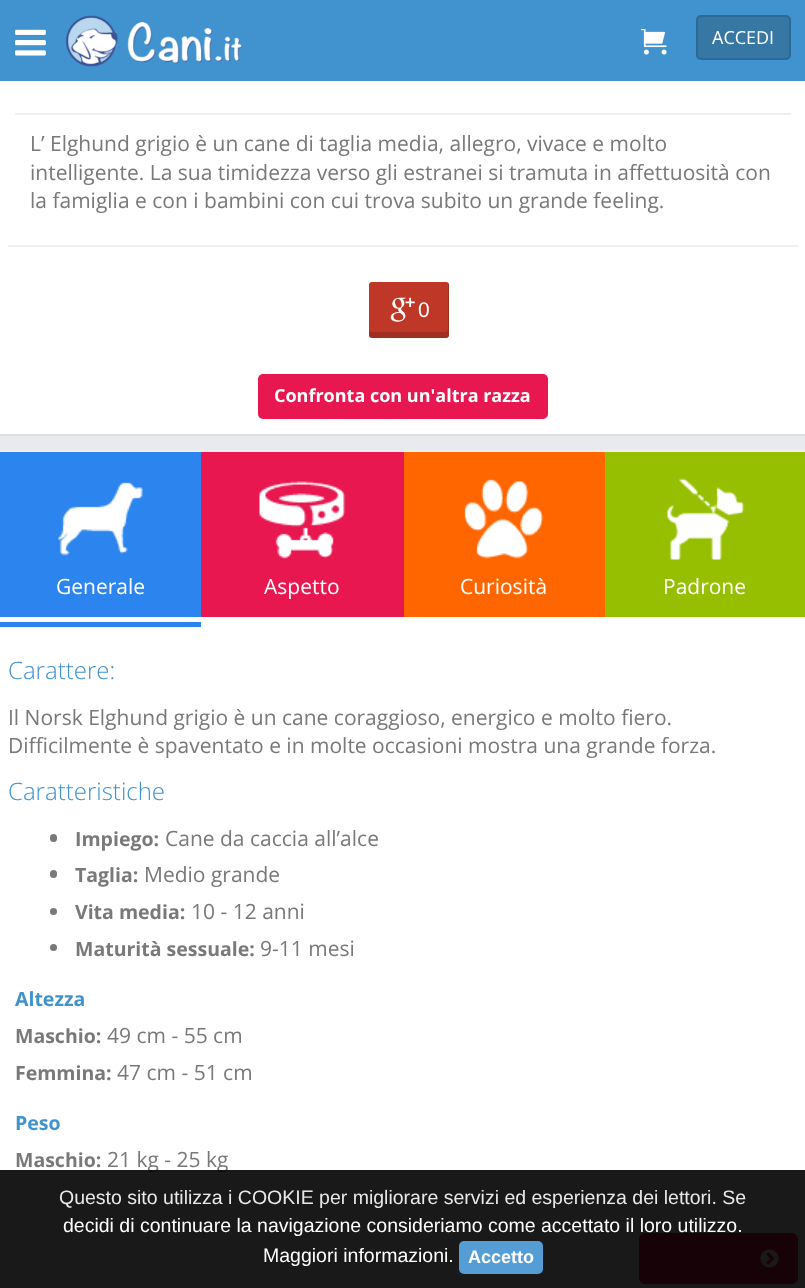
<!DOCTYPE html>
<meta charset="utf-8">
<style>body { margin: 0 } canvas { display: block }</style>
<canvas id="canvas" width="805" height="1288"></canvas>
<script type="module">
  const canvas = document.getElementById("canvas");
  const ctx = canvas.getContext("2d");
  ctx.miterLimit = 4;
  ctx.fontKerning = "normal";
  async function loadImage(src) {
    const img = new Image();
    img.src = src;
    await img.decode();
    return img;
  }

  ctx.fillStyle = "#e9eaed";
  ctx.fillRect(0, 0, 805, 1288);
  ctx.fillStyle = "#4193d0";
  ctx.fillRect(0, 0, 805, 81);
  ctx.drawImage(await loadImage("img1.png"), 15, 29, 31, 27);
  ctx.drawImage(await loadImage("img2.png"), 66, 15, 177, 52);
  ctx.drawImage(await loadImage("img3.png"), 641, 29, 26, 26);
  ctx.fillStyle = "#3677a4";
  ctx.beginPath();
  ctx.roundRect(697, 16, 93, 43, 4);
  ctx.fill();
  ctx.strokeStyle = "#286a99";
  ctx.lineWidth = 2;
  ctx.stroke();
  ctx.font = "18px Open Sans";
  ctx.fillStyle = "#ffffff";
  ctx.fillText("ACCEDI", 712, 44);
  ctx.fillRect(0, 81, 805, 353);
  ctx.fillStyle = "#e0e0e0";
  ctx.fillRect(0, 434, 805, 2);
  ctx.fillStyle = "#efefef";
  ctx.fillRect(15, 113, 776, 2);
  ctx.font = "21px Open Sans";
  ctx.fillStyle = "#797979";
  ctx.fillText("L’ Elghund grigio è un cane di taglia media, allegro, vivace e molto", 30, 151);
  ctx.fillText("intelligente. La sua timidezza verso gli estranei si tramuta in affettuosità con", 30, 180);
  ctx.fillText("la famiglia e con i bambini con cui trova subito un grande feeling.", 30, 208);
  ctx.fillStyle = "#efefef";
  ctx.fillRect(8, 245, 790, 2);
  ctx.fillStyle = "#bf3727";
  ctx.beginPath();
  ctx.roundRect(369, 282, 80, 56, 3);
  ctx.fill();
  ctx.fillStyle = "rgba(0, 0, 0, 0.15)";
  ctx.beginPath();
  ctx.moveTo(369, 328);
  ctx.lineTo(369, 335);
  ctx.bezierCurveTo(369, 337, 370, 338, 372, 338);
  ctx.lineTo(446, 338);
  ctx.bezierCurveTo(448, 338, 449, 337, 449, 335);
  ctx.lineTo(449, 285);
  ctx.bezierCurveTo(449, 284, 449, 283, 448, 283);
  ctx.lineTo(448, 328);
  ctx.bezierCurveTo(448, 330, 447, 332, 446, 332);
  ctx.lineTo(372, 332);
  ctx.bezierCurveTo(370, 332, 369, 330, 369, 328);
  ctx.closePath();
  ctx.fill();
  ctx.drawImage(await loadImage("img4.png"), 390, 297, 25, 25);
  ctx.font = "21px Liberation Sans";
  ctx.fillStyle = "#ffffff";
  ctx.fillText("0", 418, 317);
  ctx.fillStyle = "#e81750";
  ctx.beginPath();
  ctx.roundRect(258, 374, 290, 45, 5);
  ctx.fill();
  ctx.font = "bold 18px Open Sans";
  ctx.fillStyle = "#ffffff";
  ctx.fillText("Confronta con un'altra razza", 274, 402);
  ctx.fillRect(0, 617, 805, 671);
  ctx.fillStyle = "#efefef";
  ctx.fillRect(0, 450, 805, 2);
  ctx.fillStyle = "#2c84ee";
  ctx.fillRect(0, 452, 201, 175);
  ctx.fillStyle = "#ffffff";
  ctx.fillRect(0, 617, 201, 5);
  ctx.drawImage(await loadImage("img5.png"), 58, 482, 85, 74);
  ctx.font = "21px Open Sans";
  ctx.fillText("Generale", 56, 594);
  ctx.fillStyle = "#e81750";
  ctx.fillRect(201, 452, 203, 165);
  ctx.drawImage(await loadImage("img6.png"), 259, 481, 87, 78);
  ctx.fillStyle = "#ffffff";
  ctx.fillText("Aspetto", 264, 594);
  ctx.fillStyle = "#ff6600";
  ctx.fillRect(404, 452, 201, 165);
  ctx.drawImage(await loadImage("img7.png"), 464, 479, 80, 80);
  ctx.fillStyle = "#ffffff";
  ctx.fillText("Curiosità", 460, 594);
  ctx.fillStyle = "#96bf01";
  ctx.fillRect(605, 452, 200, 165);
  ctx.drawImage(await loadImage("img8.png"), 667, 478, 78, 82);
  ctx.fillStyle = "#ffffff";
  ctx.fillText("Padrone", 663, 594);
  ctx.font = "300 24px Open Sans";
  ctx.fillStyle = "#4193d0";
  ctx.fillText("Carattere:", 8, 679);
  ctx.font = "21px Open Sans";
  ctx.fillStyle = "#797979";
  ctx.fillText("Il Norsk Elghund grigio è un cane coraggioso, energico e molto fiero.", 8, 725);
  ctx.fillText("Difficilmente è spaventato e in molte occasioni mostra una grande forza.", 8, 753);
  ctx.font = "300 24px Open Sans";
  ctx.fillStyle = "#4193d0";
  ctx.fillText("Caratteristiche", 8, 800);
  ctx.fillStyle = "#797979";
  ctx.beginPath();
  ctx.roundRect(50, 834, 7, 8, 3.5);
  ctx.fill();
  ctx.font = "bold 19.5px Open Sans";
  ctx.fillText("Impiego:", 75, 846);
  ctx.font = "21px Open Sans";
  ctx.fillText("Cane da caccia all’alce", 165, 846);
  ctx.beginPath();
  ctx.roundRect(50, 870, 7, 8, 3.5);
  ctx.fill();
  ctx.font = "bold 19.5px Open Sans";
  ctx.fillText("Taglia:", 75, 882);
  ctx.font = "21px Open Sans";
  ctx.fillText("Medio grande", 144, 882);
  ctx.beginPath();
  ctx.arc(53.5, 911.5, 3.5, 0, Math.PI * 2);
  ctx.fill();
  ctx.font = "bold 19.5px Open Sans";
  ctx.fillText("Vita media:", 75, 919);
  ctx.font = "21px Open Sans";
  ctx.fillText("10 - 12 anni", 191, 919);
  ctx.beginPath();
  ctx.arc(53.5, 947.5, 3.5, 0, Math.PI * 2);
  ctx.fill();
  ctx.font = "bold 19.5px Open Sans";
  ctx.fillText("Maturità sessuale:", 75, 956);
  ctx.font = "21px Open Sans";
  ctx.fillText("9-11 mesi", 260, 956);
  ctx.font = "bold 19.5px Open Sans";
  ctx.fillStyle = "#4193d0";
  ctx.fillText("Altezza", 15, 1006);
  ctx.fillStyle = "#797979";
  ctx.fillText("Maschio:", 15, 1043);
  ctx.font = "21px Open Sans";
  ctx.fillText("49 cm - 55 cm", 107, 1043);
  ctx.font = "bold 19.5px Open Sans";
  ctx.fillText("Femmina:", 15, 1080);
  ctx.font = "21px Open Sans";
  ctx.fillText("47 cm - 51 cm", 117, 1080);
  ctx.font = "bold 19.5px Open Sans";
  ctx.fillStyle = "#4193d0";
  ctx.fillText("Peso", 15, 1130);
  ctx.fillStyle = "#797979";
  ctx.fillText("Maschio:", 15, 1167);
  ctx.font = "21px Open Sans";
  ctx.fillText("21 kg - 25 kg", 107, 1167);
  ctx.fillStyle = "#e81750";
  ctx.beginPath();
  ctx.roundRect(639, 1233, 159, 51, 6);
  ctx.fill();
  ctx.drawImage(await loadImage("img9.png"), 760, 1249, 19, 19);
  ctx.fillStyle = "rgba(0, 0, 0, 0.9)";
  ctx.fillRect(0, 1170, 805, 118);
  ctx.font = "19.5px Liberation Sans";
  ctx.fillStyle = "#e8e8e8";
  ctx.fillText("Questo sito utilizza i COOKIE per migliorare servizi ed esperienza dei lettori. Se", 59, 1204);
  ctx.fillStyle = "#ffffff";
  ctx.fillText("decidi di continuare la navigazione consideriamo come accettato il loro utilizzo.", 63, 1232);
  ctx.fillText("Maggiori informazioni.", 263, 1262);
  ctx.fillStyle = "#549ed5";
  ctx.beginPath();
  ctx.roundRect(460, 1242, 82, 31, 4);
  ctx.fill();
  ctx.strokeStyle = "#549ed5";
  ctx.stroke();
  ctx.font = "bold 18px Liberation Sans";
  ctx.fillStyle = "#ffffff";
  ctx.fillText("Accetto", 468, 1263);
</script>
